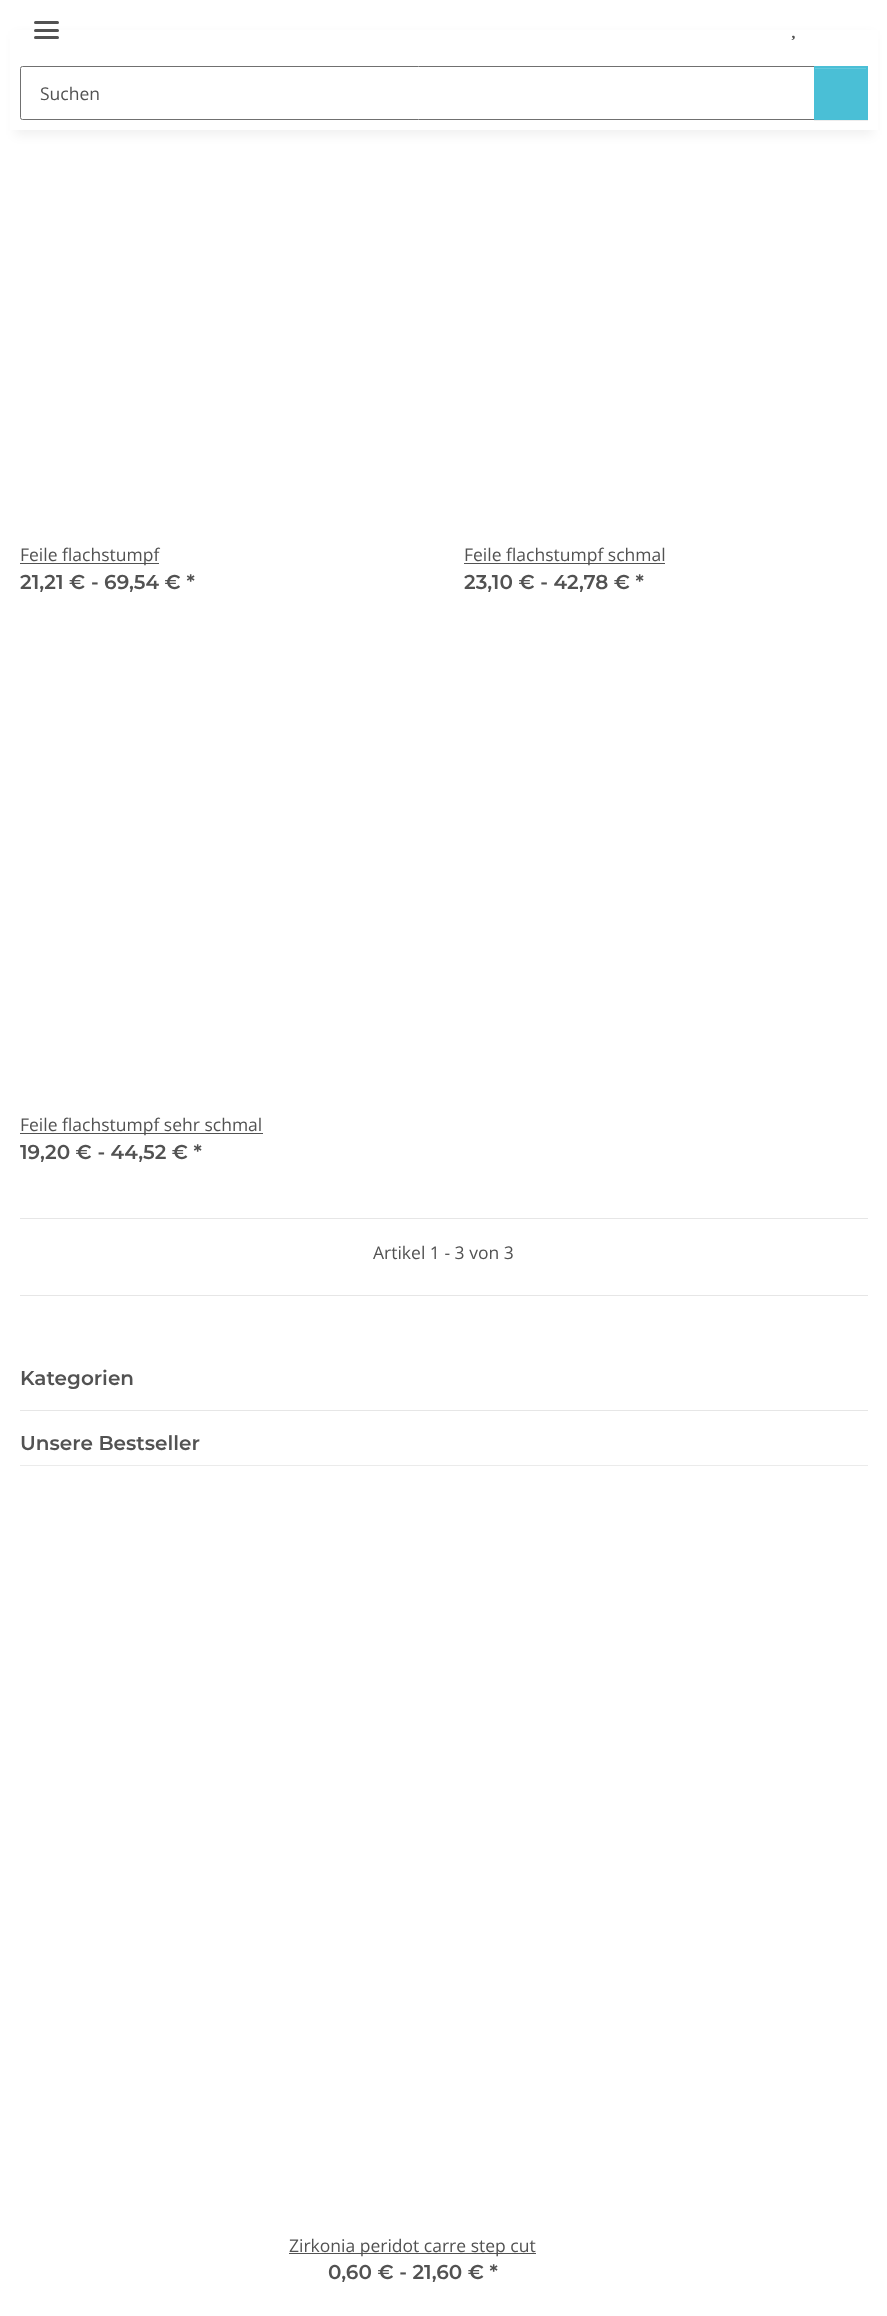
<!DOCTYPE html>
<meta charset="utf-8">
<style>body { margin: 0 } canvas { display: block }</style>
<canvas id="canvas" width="887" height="2316"></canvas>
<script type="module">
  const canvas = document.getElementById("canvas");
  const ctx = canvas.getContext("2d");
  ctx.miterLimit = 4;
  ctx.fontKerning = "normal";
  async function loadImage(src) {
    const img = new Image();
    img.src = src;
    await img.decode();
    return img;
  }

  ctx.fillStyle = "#ffffff";
  ctx.fillRect(0, 0, 887, 2316);
  ctx.fillStyle = "rgba(0, 0, 0, 0.06)";
  ctx.filter = "blur(5.5px)";
  ctx.beginPath();
  ctx.rect(15, 35, 858, 100);
  ctx.fill();
  ctx.filter = "none";
  ctx.fillStyle = "#ffffff";
  ctx.fillRect(10, 30, 868, 100);
  ctx.fillStyle = "#525252";
  ctx.beginPath();
  ctx.roundRect(34, 29, 25, 3, 1.5);
  ctx.fill();
  ctx.beginPath();
  ctx.roundRect(34, 21, 25, 3, 1.5);
  ctx.fill();
  ctx.beginPath();
  ctx.roundRect(34, 36, 25, 3, 1.5);
  ctx.fill();
  ctx.drawImage(await loadImage("img1.png"), 791, 35, 4, 5);
  ctx.beginPath();
  ctx.roundRect(20.5, 66.5, 794, 53, [2, 0, 0, 2]);
  ctx.strokeStyle = "#707070";
  ctx.stroke();
  ctx.font = "17.5px Open Sans";
  ctx.fillText("Suchen", 40, 100);
  ctx.fillStyle = "rgba(0, 0, 0, 0.07)";
  ctx.filter = "blur(0.5px)";
  ctx.beginPath();
  ctx.rect(814, 68, 54, 53);
  ctx.fill();
  ctx.filter = "none";
  ctx.fillStyle = "#4abfd6";
  ctx.fillRect(814, 66, 54, 54);
  ctx.fillStyle = "#65c9dc";
  ctx.fillRect(815, 68, 51, 1);
  ctx.fillStyle = "#525252";
  ctx.fillRect(20, 563, 139, 1);
  ctx.fillText("Feile flachstumpf", 20, 561);
  ctx.font = "600 20px Montserrat";
  ctx.fillText("21,21 € - 69,54 € *", 20, 589);
  ctx.fillRect(464, 563, 201, 1);
  ctx.font = "17.5px Open Sans";
  ctx.fillText("Feile flachstumpf schmal", 464, 561);
  ctx.font = "600 20px Montserrat";
  ctx.fillText("23,10 € - 42,78 € *", 464, 589);
  ctx.fillRect(20, 1133, 243, 1);
  ctx.font = "17.5px Open Sans";
  ctx.fillText("Feile flachstumpf sehr schmal", 20, 1131);
  ctx.font = "600 20px Montserrat";
  ctx.fillText("19,20 € - 44,52 € *", 20, 1159);
  ctx.fillStyle = "#e6e6e6";
  ctx.fillRect(20, 1218, 848, 1);
  ctx.font = "17.5px Open Sans";
  ctx.fillStyle = "#525252";
  ctx.fillText("Artikel 1 - 3 von 3", 373, 1259);
  ctx.fillStyle = "#e6e6e6";
  ctx.fillRect(20, 1295, 848, 1);
  ctx.font = "600 20px Montserrat";
  ctx.fillStyle = "#525252";
  ctx.fillText("Kategorien", 20, 1385);
  ctx.fillStyle = "#e6e6e6";
  ctx.fillRect(20, 1410, 848, 1);
  ctx.fillStyle = "#ebebeb";
  ctx.fillRect(20, 1465, 848, 1);
  ctx.fillStyle = "#525252";
  ctx.fillText("Unsere Bestseller", 20, 1450);
  ctx.fillRect(289, 2253, 247, 1);
  ctx.font = "17.5px Open Sans";
  ctx.fillText("Zirkonia peridot carre step cut", 289, 2252);
  ctx.font = "600 20px Montserrat";
  ctx.fillText("0,60 € - 21,60 € *", 328, 2279);
</script>
